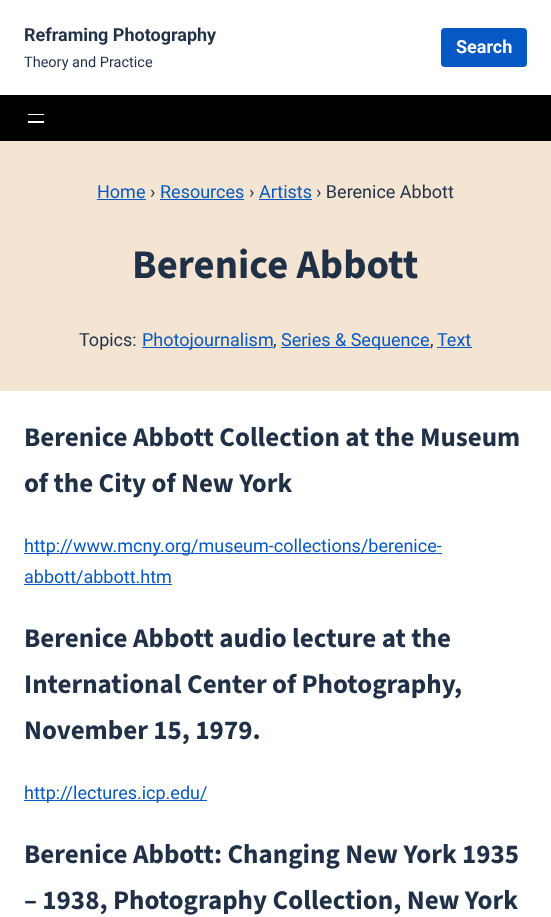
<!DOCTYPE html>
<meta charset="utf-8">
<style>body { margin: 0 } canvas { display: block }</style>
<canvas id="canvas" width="551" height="917"></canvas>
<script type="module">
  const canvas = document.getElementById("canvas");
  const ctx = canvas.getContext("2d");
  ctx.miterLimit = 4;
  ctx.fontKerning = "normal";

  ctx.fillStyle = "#ffffff";
  ctx.fillRect(0, 0, 551, 917);
  ctx.font = "bold 18px Roboto";
  ctx.fillStyle = "#1f3047";
  ctx.fillText("Reframing Photography", 24, 41);
  ctx.font = "14.5px Roboto";
  ctx.fillText("Theory and Practice", 24, 67);
  ctx.fillStyle = "#0659c4";
  ctx.beginPath();
  ctx.roundRect(441, 28, 86, 39, 4);
  ctx.fill();
  ctx.font = "bold 18px Roboto";
  ctx.fillStyle = "#ffffff";
  ctx.fillText("Search", 456, 53);
  ctx.fillStyle = "#000000";
  ctx.fillRect(0, 95, 551, 46);
  ctx.fillStyle = "#ffffff";
  ctx.fillRect(28, 114, 16, 1);
  ctx.fillRect(28, 121, 16, 2);
  ctx.fillStyle = "#f4e5d3";
  ctx.fillRect(0, 141, 551, 250);
  ctx.font = "18px Roboto";
  ctx.fillStyle = "#0659c4";
  ctx.fillText("Home", 97, 198);
  ctx.fillRect(97, 199, 49, 1);
  ctx.fillStyle = "#1f3047";
  ctx.fillText("›", 150, 198);
  ctx.fillStyle = "#0659c4";
  ctx.fillText("Resources", 160, 198);
  ctx.fillRect(160, 199, 84, 1);
  ctx.fillStyle = "#1f3047";
  ctx.fillText("›", 249, 198);
  ctx.fillStyle = "#0659c4";
  ctx.fillText("Artists", 259, 198);
  ctx.fillRect(259, 199, 53, 1);
  ctx.fillStyle = "#1f3047";
  ctx.fillText("› Berenice Abbott", 316, 198);
  ctx.font = "bold 40.75px 'Source Sans 3'";
  ctx.fillText("Berenice Abbott", 132, 278);
  ctx.font = "18px Roboto";
  ctx.fillText("Topics:", 79, 346);
  ctx.fillStyle = "#0659c4";
  ctx.fillRect(142, 347, 131, 1);
  ctx.fillText("Photojournalism", 142, 346);
  ctx.fillStyle = "#1f3047";
  ctx.fillText(",", 273, 346);
  ctx.fillStyle = "#0659c4";
  ctx.fillRect(281, 347, 149, 1);
  ctx.fillText("Series & Sequence", 281, 346);
  ctx.fillStyle = "#1f3047";
  ctx.fillText(",", 430, 346);
  ctx.fillStyle = "#0659c4";
  ctx.fillText("Text", 437, 346);
  ctx.fillRect(437, 347, 35, 1);
  ctx.font = "bold 27px 'Source Sans 3'";
  ctx.fillStyle = "#1f3047";
  ctx.fillText("Berenice Abbott Collection at the Museum", 24, 446);
  ctx.fillText("of the City of New York", 24, 492);
  ctx.fillStyle = "#0659c4";
  ctx.fillRect(24, 553, 418, 1);
  ctx.font = "18px Roboto";
  ctx.fillText("http://www.mcny.org/museum-collections/berenice-", 24, 552);
  ctx.fillRect(24, 584, 148, 1);
  ctx.fillText("abbott/abbott.htm", 24, 583);
  ctx.font = "bold 27px 'Source Sans 3'";
  ctx.fillStyle = "#1f3047";
  ctx.fillText("Berenice Abbott audio lecture at the", 24, 647);
  ctx.fillText("International Center of Photography,", 24, 693);
  ctx.fillText("November 15, 1979.", 24, 739);
  ctx.fillStyle = "#0659c4";
  ctx.fillRect(24, 800, 183, 1);
  ctx.font = "18px Roboto";
  ctx.fillText("http://lectures.icp.edu/", 24, 799);
  ctx.font = "bold 27px 'Source Sans 3'";
  ctx.fillStyle = "#1f3047";
  ctx.fillText("Berenice Abbott: Changing New York 1935", 24, 863);
  ctx.fillText("– 1938, Photography Collection, New York", 24, 909);
</script>
